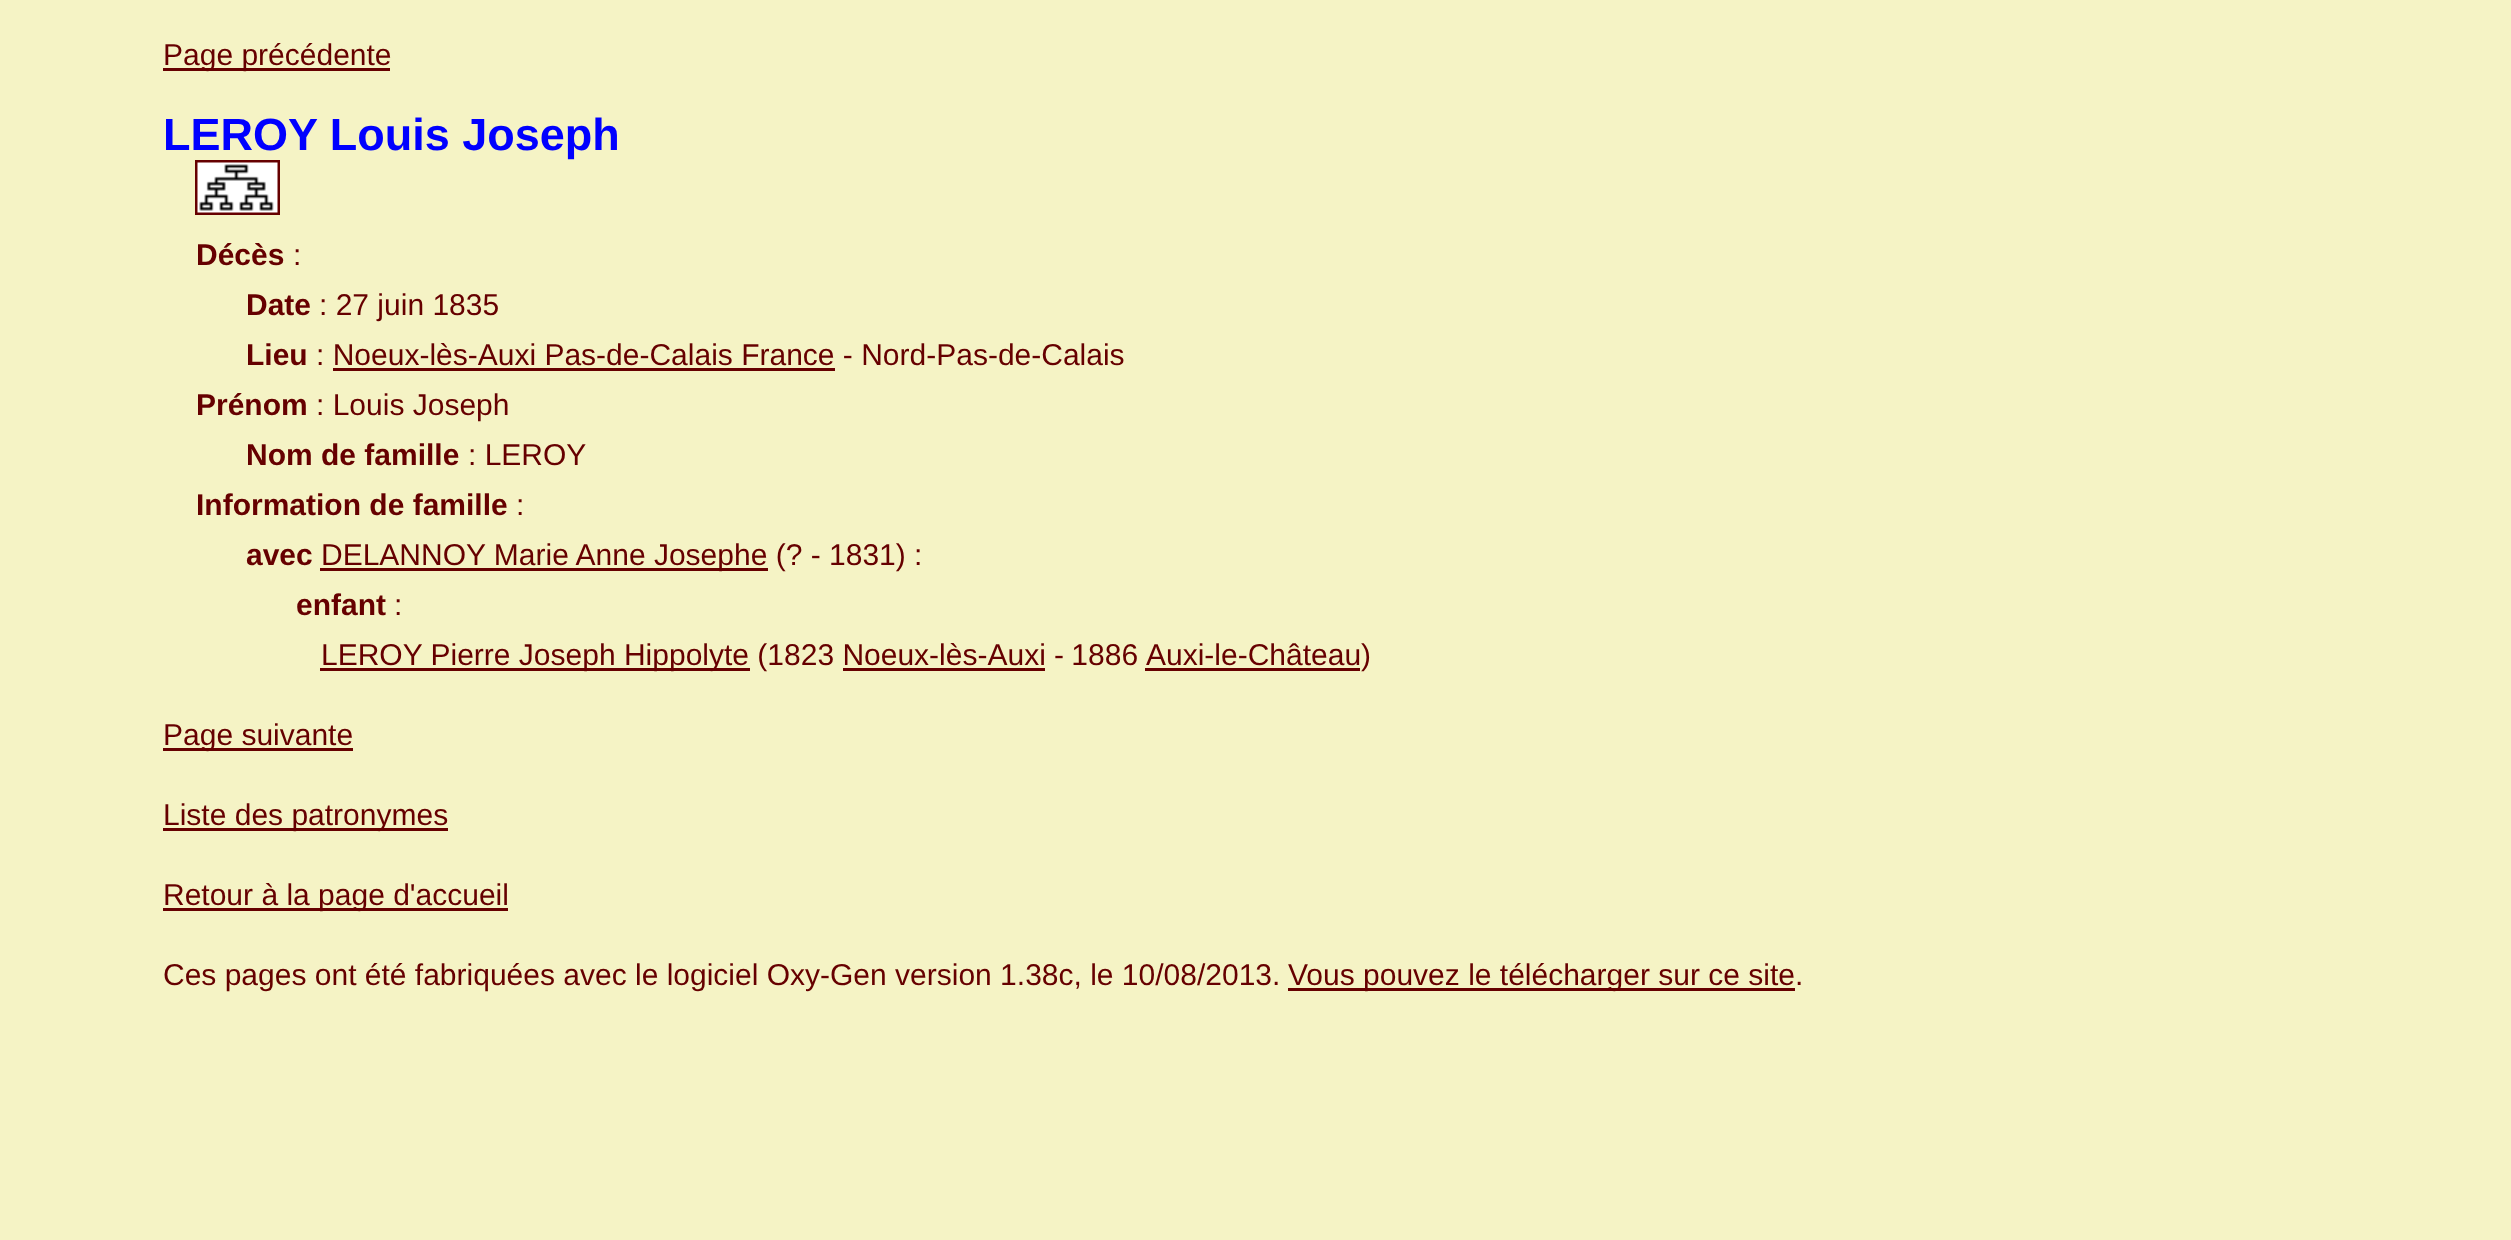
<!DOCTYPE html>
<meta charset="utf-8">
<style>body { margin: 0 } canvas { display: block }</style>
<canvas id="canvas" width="2511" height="1240"></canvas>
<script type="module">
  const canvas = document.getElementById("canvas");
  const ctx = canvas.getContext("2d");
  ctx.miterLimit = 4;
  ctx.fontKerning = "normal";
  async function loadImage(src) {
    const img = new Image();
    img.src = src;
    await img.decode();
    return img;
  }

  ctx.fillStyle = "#f5f3c5";
  ctx.fillRect(0, 0, 2511, 1240);
  ctx.fillStyle = "#660000";
  ctx.fillRect(163, 68, 227, 3);
  ctx.font = "30px Liberation Sans";
  ctx.fillText("Page précédente", 163, 65);
  ctx.font = "bold 45px Liberation Sans";
  ctx.fillStyle = "#0000ff";
  ctx.fillText("LEROY Louis Joseph", 163, 150);
  ctx.strokeStyle = "#660000";
  ctx.lineWidth = 3;
  ctx.strokeRect(196.5, 161.5, 82, 52);
  ctx.drawImage(await loadImage("img1.png"), 197, 162, 81, 51);
  ctx.font = "bold 30px Liberation Sans";
  ctx.fillStyle = "#660000";
  ctx.fillText("Décès", 196, 265);
  ctx.font = "30px Liberation Sans";
  ctx.fillText(":", 293, 265);
  ctx.font = "bold 30px Liberation Sans";
  ctx.fillText("Date", 246, 315);
  ctx.font = "30px Liberation Sans";
  ctx.fillText(": 27 juin 1835", 319, 315);
  ctx.font = "bold 30px Liberation Sans";
  ctx.fillText("Lieu", 246, 365);
  ctx.font = "30px Liberation Sans";
  ctx.fillText(": Noeux-lès-Auxi Pas-de-Calais France - Nord-Pas-de-Calais", 316, 365);
  ctx.fillRect(333, 368, 502, 3);
  ctx.font = "bold 30px Liberation Sans";
  ctx.fillText("Prénom", 196, 415);
  ctx.font = "30px Liberation Sans";
  ctx.fillText(": Louis Joseph", 316, 415);
  ctx.font = "bold 30px Liberation Sans";
  ctx.fillText("Nom de famille", 246, 465);
  ctx.font = "30px Liberation Sans";
  ctx.fillText(": LEROY", 468, 465);
  ctx.font = "bold 30px Liberation Sans";
  ctx.fillText("Information de famille", 196, 515);
  ctx.font = "30px Liberation Sans";
  ctx.fillText(":", 516, 515);
  ctx.font = "bold 30px Liberation Sans";
  ctx.fillText("avec", 246, 565);
  ctx.fillRect(320, 568, 448, 3);
  ctx.font = "30px Liberation Sans";
  ctx.fillText("DELANNOY Marie Anne Josephe (? - 1831) :", 321, 565);
  ctx.font = "bold 30px Liberation Sans";
  ctx.fillText("enfant", 296, 615);
  ctx.font = "30px Liberation Sans";
  ctx.fillText(":", 394, 615);
  ctx.fillRect(320, 668, 430, 3);
  ctx.fillText("LEROY Pierre Joseph Hippolyte (1823 Noeux-lès-Auxi", 321, 665);
  ctx.wordSpacing = "-1px";
  ctx.fillText("- 1886", 1054, 665);
  ctx.fillRect(1145, 668, 215, 3);
  ctx.wordSpacing = "0px";
  ctx.fillText("Auxi-le-Château)", 1146, 665);
  ctx.fillRect(843, 668, 202, 3);
  ctx.fillRect(163, 748, 190, 3);
  ctx.fillText("Page suivante", 163, 745);
  ctx.fillRect(163, 828, 285, 3);
  ctx.fillText("Liste des patronymes", 163, 825);
  ctx.fillRect(163, 908, 345, 3);
  ctx.fillText("Retour à la page d'accueil", 163, 905);
  ctx.fillText("Ces pages ont été fabriquées avec le logiciel Oxy-Gen version 1.38c, le 10/08/2013.", 163, 985);
  ctx.fillRect(1288, 988, 507, 3);
  ctx.fillText("Vous pouvez le télécharger sur ce site.", 1288, 985);
</script>
